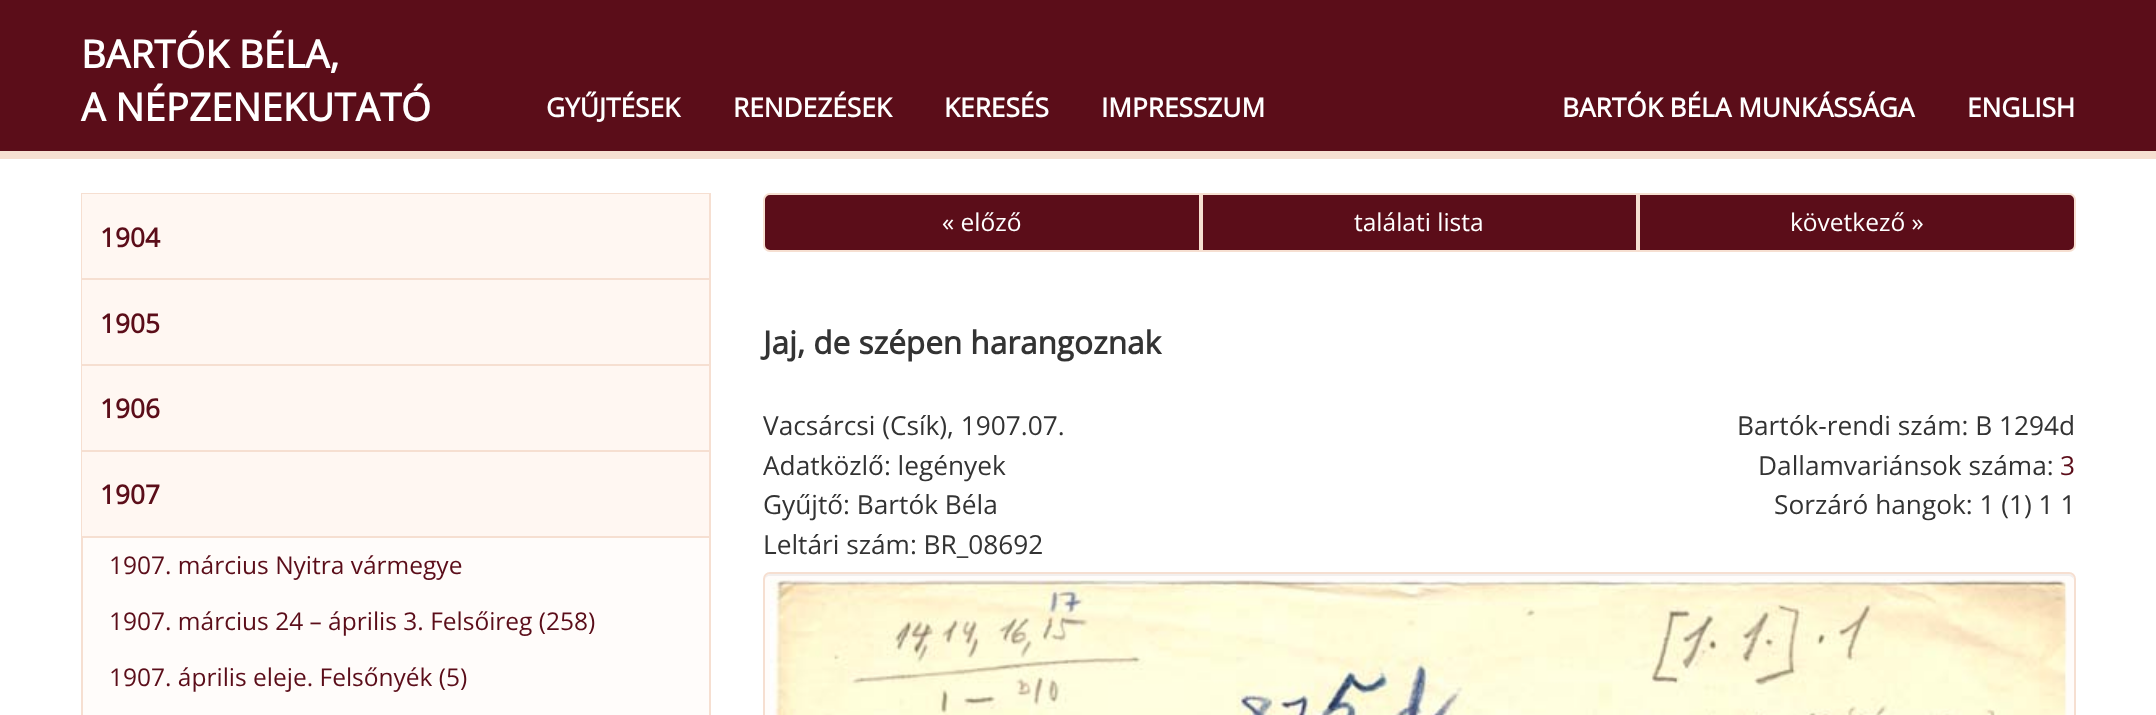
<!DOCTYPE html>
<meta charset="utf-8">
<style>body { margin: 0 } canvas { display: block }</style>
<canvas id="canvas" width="2156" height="715"></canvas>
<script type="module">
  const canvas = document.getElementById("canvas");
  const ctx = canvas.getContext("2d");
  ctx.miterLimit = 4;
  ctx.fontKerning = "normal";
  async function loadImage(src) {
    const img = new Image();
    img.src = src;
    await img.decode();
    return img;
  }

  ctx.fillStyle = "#ffffff";
  ctx.fillRect(0, 0, 2156, 715);
  ctx.fillStyle = "#5b0d19";
  ctx.fillRect(0, 0, 2156, 151);
  ctx.fillStyle = "#f6dfd1";
  ctx.fillRect(0, 151, 2156, 8);
  ctx.font = "bold 38.5px Open Sans";
  ctx.fillStyle = "#ffffff";
  ctx.fillText("BARTÓK BÉLA,", 81, 68);
  ctx.fillText("A NÉPZENEKUTATÓ", 81, 121);
  ctx.font = "bold 26.25px Open Sans";
  ctx.fillText("GYŰJTÉSEK", 546, 117);
  ctx.fillText("RENDEZÉSEK", 733, 117);
  ctx.fillText("KERESÉS", 944, 117);
  ctx.fillText("IMPRESSZUM", 1101, 117);
  ctx.fillText("BARTÓK BÉLA MUNKÁSSÁGA", 1562, 117);
  ctx.fillText("ENGLISH", 1967, 117);
  ctx.fillStyle = "#fffcfa";
  ctx.fillRect(83, 538, 626, 177);
  ctx.strokeStyle = "#f6dfd1";
  ctx.lineWidth = 2;
  ctx.strokeRect(82, 194, 628, 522);
  ctx.fillStyle = "#fff7f2";
  ctx.fillRect(82, 194, 627, 84);
  ctx.fillStyle = "#f6dfd1";
  ctx.fillRect(82, 278, 627, 2);
  ctx.fillStyle = "#5b0d19";
  ctx.fillText("1904", 100, 247);
  ctx.fillStyle = "#fff7f2";
  ctx.fillRect(82, 280, 627, 84);
  ctx.fillStyle = "#f6dfd1";
  ctx.fillRect(82, 364, 627, 2);
  ctx.fillStyle = "#5b0d19";
  ctx.fillText("1905", 100, 333);
  ctx.fillStyle = "#fff7f2";
  ctx.fillRect(82, 366, 627, 84);
  ctx.fillStyle = "#f6dfd1";
  ctx.fillRect(82, 450, 627, 2);
  ctx.fillStyle = "#5b0d19";
  ctx.fillText("1906", 100, 418);
  ctx.fillStyle = "#fff7f2";
  ctx.fillRect(82, 452, 627, 84);
  ctx.fillStyle = "#f6dfd1";
  ctx.fillRect(82, 536, 627, 2);
  ctx.fillStyle = "#5b0d19";
  ctx.fillText("1907", 100, 504);
  ctx.font = "24.5px Open Sans";
  ctx.fillText("1907. március Nyitra vármegye", 109, 574);
  ctx.fillText("1907. március 24 – április 3. Felsőireg (258)", 109, 630);
  ctx.fillText("1907. április eleje. Felsőnyék (5)", 109, 686);
  ctx.beginPath();
  ctx.roundRect(764, 194, 436, 57, [6, 0, 0, 6]);
  ctx.fill();
  ctx.stroke();
  ctx.fillStyle = "#ffffff";
  ctx.fillText("« előző", 942, 231);
  ctx.fillStyle = "#5b0d19";
  ctx.beginPath();
  ctx.rect(1202, 194, 435, 57);
  ctx.fill();
  ctx.stroke();
  ctx.fillStyle = "#ffffff";
  ctx.fillText("találati lista", 1354, 231);
  ctx.fillStyle = "#5b0d19";
  ctx.beginPath();
  ctx.roundRect(1639, 194, 436, 57, [0, 6, 6, 0]);
  ctx.fill();
  ctx.stroke();
  ctx.fillStyle = "#ffffff";
  ctx.fillText("következő »", 1790, 231);
  ctx.font = "bold 31.5px Open Sans";
  ctx.fillStyle = "#333333";
  ctx.fillText("Jaj, de szépen harangoznak", 763, 354);
  ctx.font = "26.25px Open Sans";
  ctx.fillText("Vacsárcsi (Csík), 1907.07.", 763, 435);
  ctx.fillText("Adatközlő: legények", 763, 475);
  ctx.fillText("Gyűjtő: Bartók Béla", 763, 514);
  ctx.fillText("Leltári szám: BR_08692", 763, 554);
  ctx.fillText("Bartók-rendi szám: B 1294d", 1737, 435);
  ctx.fillText("Dallamvariánsok száma:", 1758, 475);
  ctx.fillStyle = "#5b0d19";
  ctx.fillText("3", 2060, 475);
  ctx.fillStyle = "#333333";
  ctx.fillText("Sorzáró hangok: 1 (1) 1 1", 1774, 514);
  ctx.fillStyle = "#fffcfa";
  ctx.beginPath();
  ctx.roundRect(763, 572, 1313, 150, 7);
  ctx.fill();
  ctx.fillStyle = "#f2efee";
  ctx.beginPath();
  ctx.moveTo(770, 576);
  ctx.lineTo(2068, 576);
  ctx.bezierCurveTo(2071, 576, 2074, 578, 2074, 581);
  ctx.bezierCurveTo(2074, 578, 2073, 574, 2069, 574);
  ctx.lineTo(770, 574);
  ctx.bezierCurveTo(766, 574, 765, 578, 765, 581);
  ctx.bezierCurveTo(765, 578, 767, 576, 770, 576);
  ctx.closePath();
  ctx.fill();
  ctx.beginPath();
  ctx.roundRect(764, 573, 1311, 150, 6);
  ctx.stroke();
  ctx.drawImage(await loadImage("img1.png"), 770, 579, 1297, 136);
</script>
